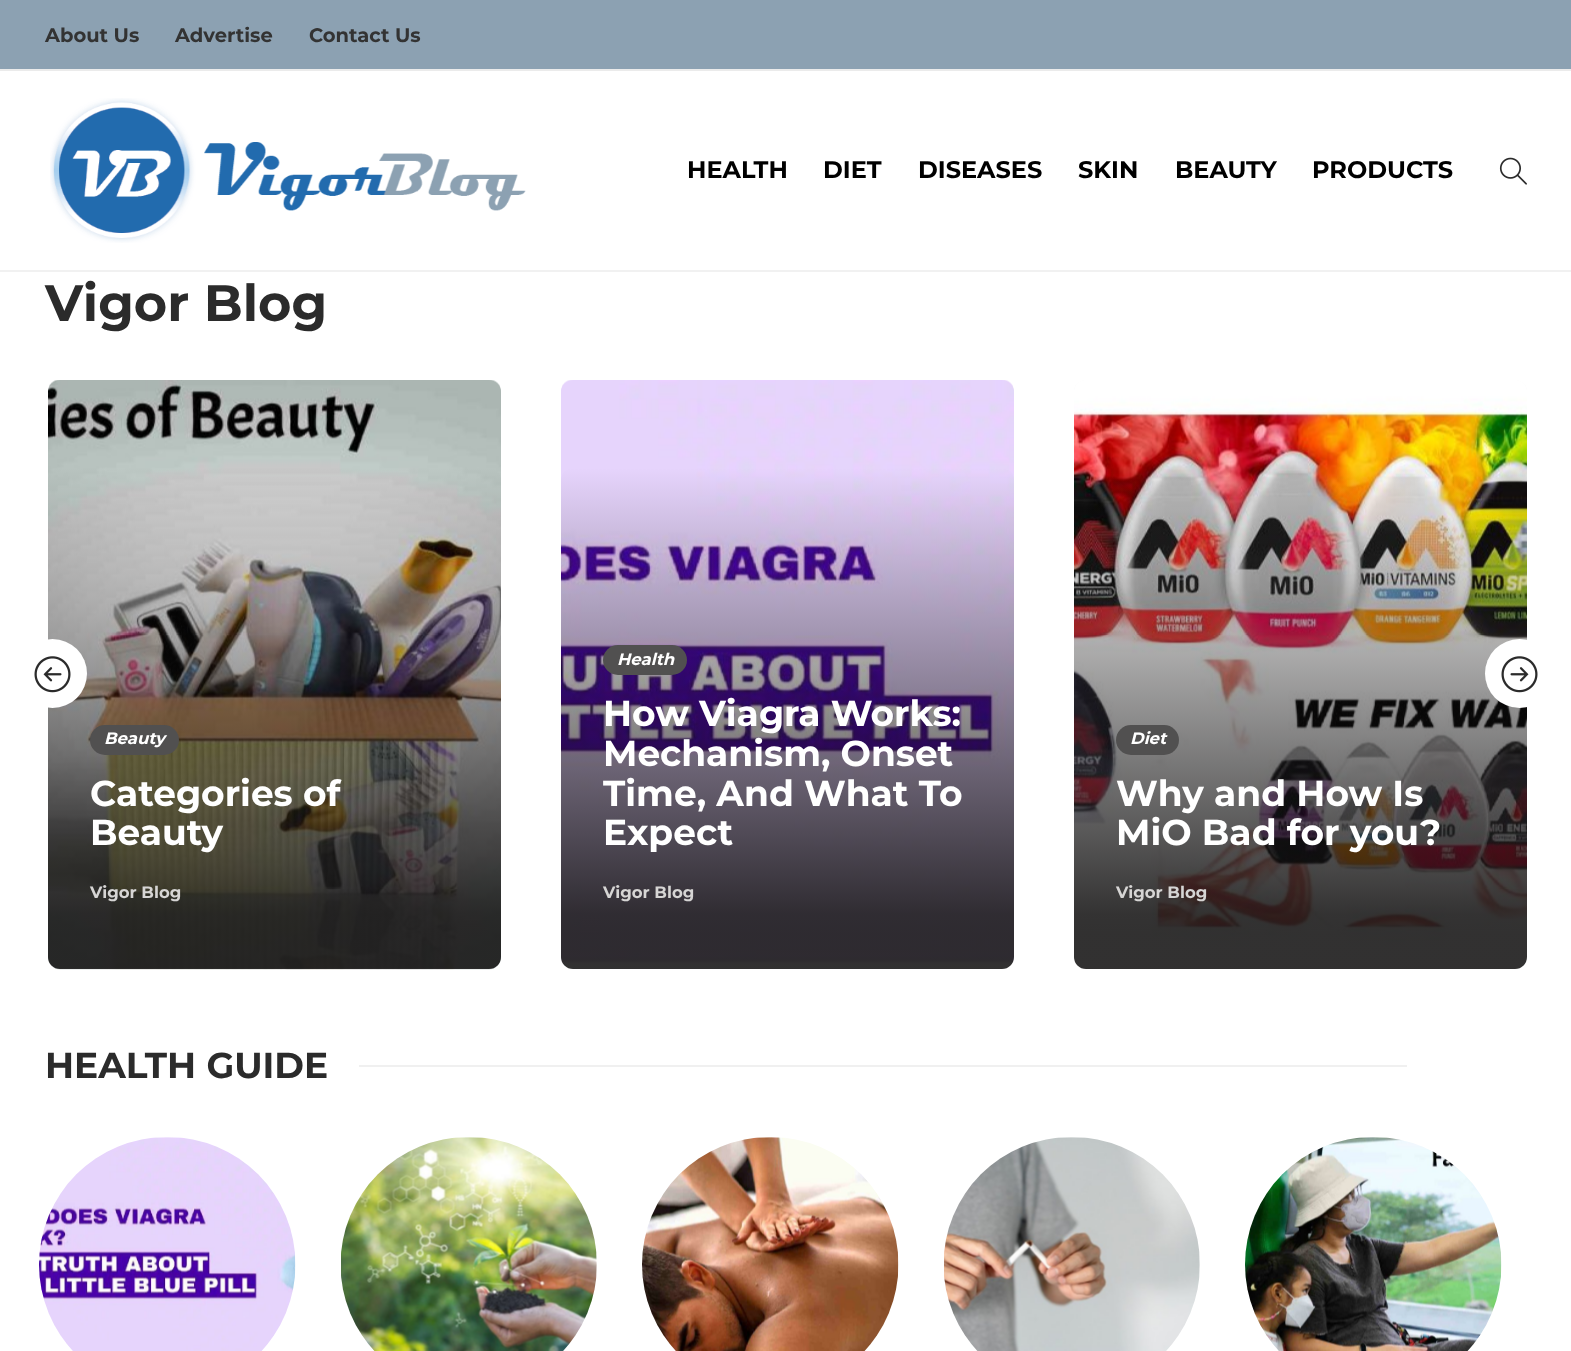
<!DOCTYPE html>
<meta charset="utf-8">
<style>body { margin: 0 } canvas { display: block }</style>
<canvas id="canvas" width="1571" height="1351"></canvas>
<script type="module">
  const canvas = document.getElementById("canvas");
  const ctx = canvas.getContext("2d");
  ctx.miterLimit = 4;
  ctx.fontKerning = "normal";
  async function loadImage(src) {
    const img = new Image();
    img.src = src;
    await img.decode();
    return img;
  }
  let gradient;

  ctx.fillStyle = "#ffffff";
  ctx.fillRect(0, 0, 1571, 1351);
  ctx.fillStyle = "#8ca1b2";
  ctx.fillRect(0, 0, 1571, 69);
  ctx.fillStyle = "#ebebeb";
  ctx.fillRect(0, 69, 1571, 2);
  ctx.font = "100 19.5px Montserrat";
  ctx.fillStyle = "#333333";
  ctx.fillText("About Us", 45, 42);
  ctx.fillText("Advertise", 175, 42);
  ctx.fillText("Contact Us", 309, 42);
  ctx.fillStyle = "#f1f1f1";
  ctx.fillRect(0, 270, 1571, 2);
  ctx.drawImage(await loadImage("img1.png"), 50, 98, 476, 145);
  ctx.font = "100 24px Montserrat";
  ctx.fillStyle = "#000000";
  ctx.fillText("HEALTH", 687, 178);
  ctx.fillText("DIET", 823, 178);
  ctx.fillText("DISEASES", 918, 178);
  ctx.fillText("SKIN", 1078, 178);
  ctx.fillText("BEAUTY", 1175, 178);
  ctx.fillText("PRODUCTS", 1312, 178);
  ctx.drawImage(await loadImage("img2.png"), 1499, 157, 28, 28);
  ctx.font = "100 51px Montserrat";
  ctx.fillStyle = "#2b2b2b";
  ctx.fillText("Vigor Blog", 45, 321);
  ctx.fillStyle = "#f6f6f6";
  ctx.beginPath();
  ctx.roundRect(48, 380, 453, 589, 12);
  ctx.fill();
  ctx.drawImage(await loadImage("img4.png"), 48, 380, 453, 590);
  gradient = ctx.createLinearGradient(275, 468, 275, 969);
  gradient.addColorStop(0, "rgba(16, 15, 15, 0)");
  gradient.addColorStop(0.89, "rgba(16, 15, 15, 0.85)");
  gradient.addColorStop(0.93, "rgba(16, 15, 15, 0.86)");
  ctx.fillStyle = gradient;
  ctx.beginPath();
  ctx.roundRect(48, 468, 453, 501, 12);
  ctx.fill();
  ctx.fillStyle = "#ffffff";
  ctx.beginPath();
  ctx.arc(52.5, 673.5, 34.5, 0, Math.PI * 2);
  ctx.fill();
  ctx.drawImage(await loadImage("img3.png"), 34, 656, 37, 37);
  ctx.fillStyle = "#515050";
  ctx.beginPath();
  ctx.roundRect(90, 725, 89, 30, 15);
  ctx.fill();
  ctx.font = "italic 100 16.5px Montserrat";
  ctx.fillStyle = "#ffffff";
  ctx.fillText("Beauty", 104, 744);
  ctx.font = "100 36px Montserrat";
  ctx.fillText("Categories of", 90, 806);
  ctx.fillText("Beauty", 90, 845);
  ctx.font = "100 16.5px Montserrat";
  ctx.fillStyle = "#d6d5d4";
  ctx.fillText("Vigor Blog", 90, 898);
  ctx.fillStyle = "#f6f6f6";
  ctx.beginPath();
  ctx.roundRect(561, 380, 453, 589, 12);
  ctx.fill();
  ctx.drawImage(await loadImage("img5.png"), 561, 380, 453, 589);
  gradient = ctx.createLinearGradient(788, 468, 788, 969);
  gradient.addColorStop(0, "rgba(16, 15, 15, 0)");
  gradient.addColorStop(0.89, "rgba(16, 15, 15, 0.85)");
  gradient.addColorStop(0.93, "rgba(16, 15, 15, 0.86)");
  ctx.fillStyle = gradient;
  ctx.beginPath();
  ctx.roundRect(561, 468, 453, 501, 12);
  ctx.fill();
  ctx.fillStyle = "#515050";
  ctx.beginPath();
  ctx.roundRect(603, 645, 84, 30, 15);
  ctx.fill();
  ctx.font = "italic 100 16.5px Montserrat";
  ctx.fillStyle = "#ffffff";
  ctx.fillText("Health", 617, 665);
  ctx.font = "100 36px Montserrat";
  ctx.fillText("How Viagra Works:", 603, 726);
  ctx.fillText("Mechanism, Onset", 603, 766);
  ctx.fillText("Time, And What To", 603, 806);
  ctx.fillText("Expect", 603, 845);
  ctx.font = "100 16.5px Montserrat";
  ctx.fillStyle = "#d6d5d4";
  ctx.fillText("Vigor Blog", 603, 898);
  ctx.fillStyle = "#f6f6f6";
  ctx.beginPath();
  ctx.roundRect(1074, 380, 453, 589, 12);
  ctx.fill();
  ctx.drawImage(await loadImage("img6.png"), 1074, 380, 453, 589);
  gradient = ctx.createLinearGradient(1301, 468, 1301, 969);
  gradient.addColorStop(0, "rgba(16, 15, 15, 0)");
  gradient.addColorStop(0.89, "rgba(16, 15, 15, 0.85)");
  gradient.addColorStop(0.93, "rgba(16, 15, 15, 0.86)");
  ctx.fillStyle = gradient;
  ctx.beginPath();
  ctx.roundRect(1074, 468, 453, 501, 12);
  ctx.fill();
  ctx.fillStyle = "#515050";
  ctx.beginPath();
  ctx.roundRect(1116, 725, 63, 30, 15);
  ctx.fill();
  ctx.font = "italic 100 16.5px Montserrat";
  ctx.fillStyle = "#ffffff";
  ctx.fillText("Diet", 1130, 744);
  ctx.font = "100 36px Montserrat";
  ctx.fillText("Why and How Is", 1116, 806);
  ctx.fillText("MiO Bad for you?", 1116, 845);
  ctx.font = "100 16.5px Montserrat";
  ctx.fillStyle = "#d6d5d4";
  ctx.fillText("Vigor Blog", 1116, 898);
  ctx.fillStyle = "#ffffff";
  ctx.beginPath();
  ctx.arc(1519.5, 673.5, 34.5, 0, Math.PI * 2);
  ctx.fill();
  ctx.drawImage(await loadImage("img7.png"), 1501, 656, 37, 37);
  ctx.font = "100 36px Montserrat";
  ctx.fillStyle = "#2b2b2b";
  ctx.fillText("HEALTH GUIDE", 45, 1078);
  ctx.fillStyle = "#f0f0f0";
  ctx.fillRect(359, 1065, 1048, 2);
  ctx.drawImage(await loadImage("img8.png"), 39, 1137, 257, 214);
  ctx.drawImage(await loadImage("img9.png"), 341, 1137, 256, 214);
  ctx.drawImage(await loadImage("img10.png"), 642, 1137, 257, 214);
  ctx.drawImage(await loadImage("img11.png"), 944, 1137, 256, 214);
  ctx.drawImage(await loadImage("img12.png"), 1245, 1137, 257, 214);
</script>
